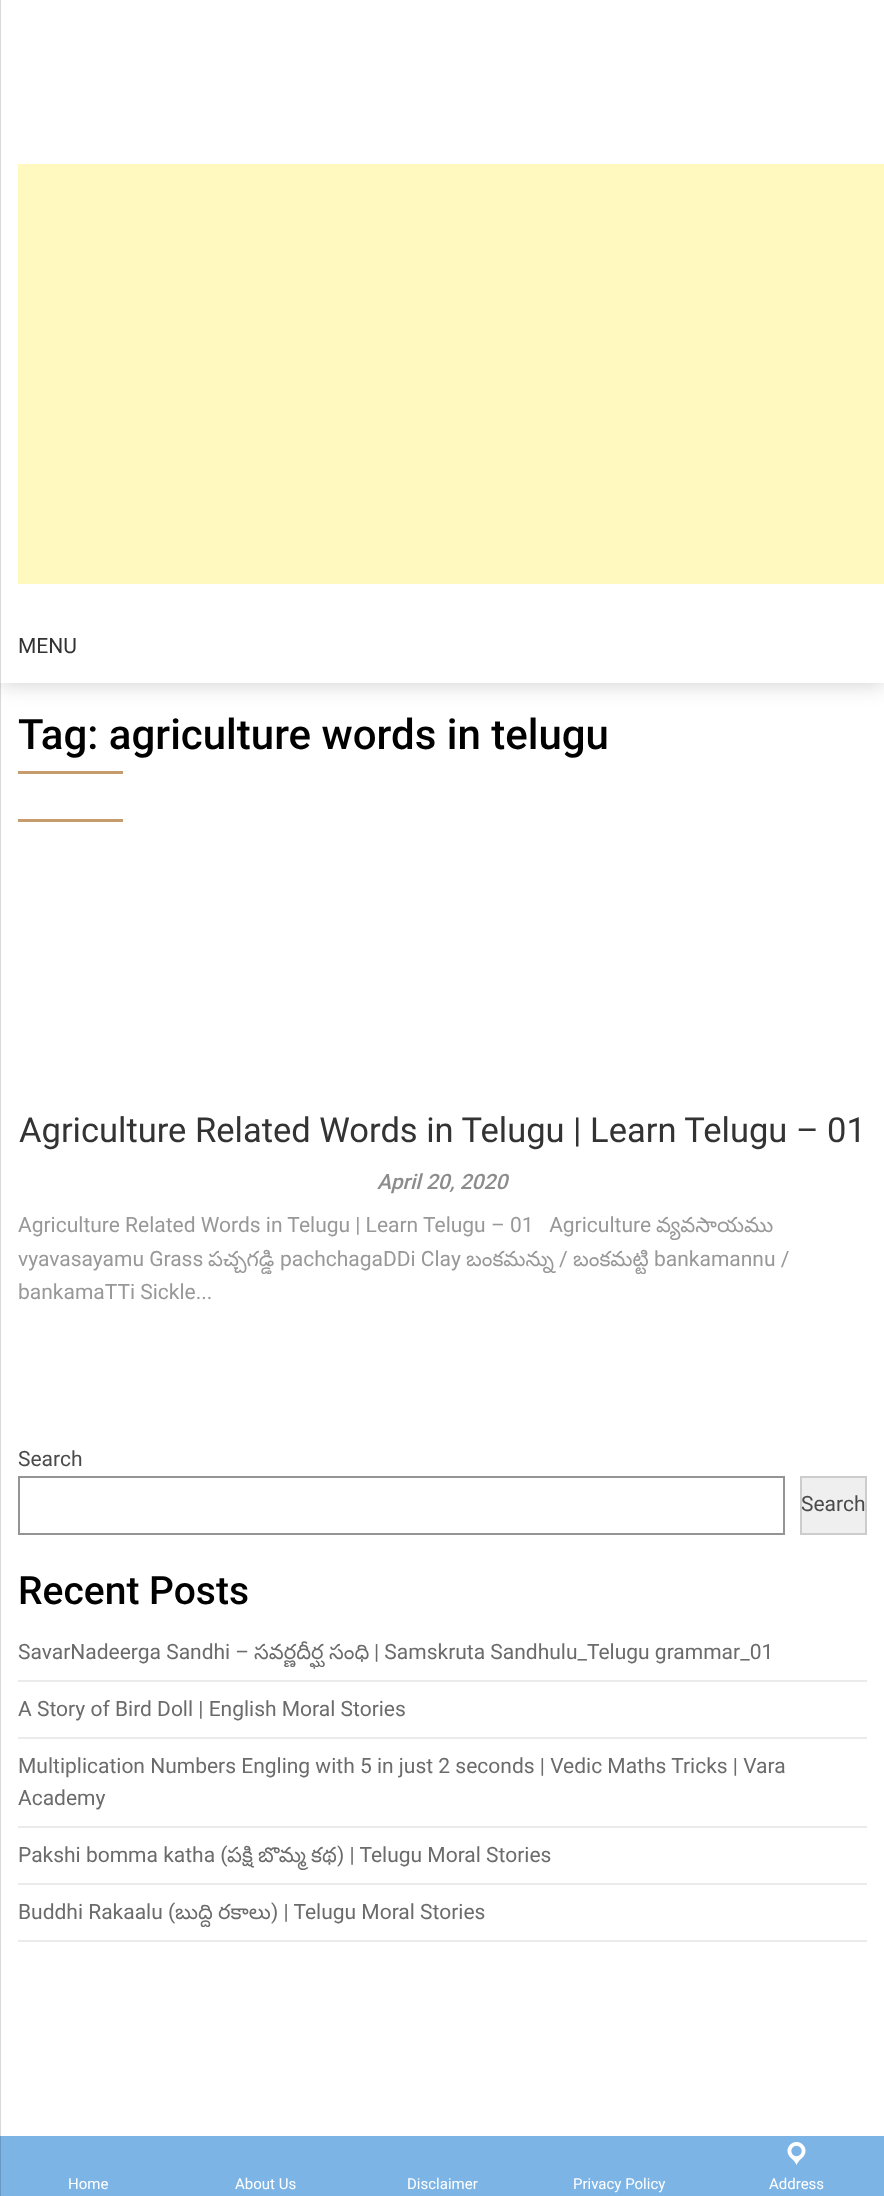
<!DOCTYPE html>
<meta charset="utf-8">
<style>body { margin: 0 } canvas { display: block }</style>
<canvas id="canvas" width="884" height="2196"></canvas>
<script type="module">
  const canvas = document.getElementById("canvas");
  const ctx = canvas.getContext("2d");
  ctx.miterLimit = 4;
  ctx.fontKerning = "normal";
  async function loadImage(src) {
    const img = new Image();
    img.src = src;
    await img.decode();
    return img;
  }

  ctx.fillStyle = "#ffffff";
  ctx.fillRect(0, 0, 884, 2196);
  ctx.fillStyle = "rgba(0, 0, 0, 0.2)";
  ctx.filter = "blur(11px)";
  ctx.beginPath();
  ctx.rect(0, 0, 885, 683);
  ctx.fill();
  ctx.filter = "none";
  ctx.fillStyle = "#ffffff";
  ctx.fillRect(0, 0, 884, 683);
  ctx.fillStyle = "#fff9c0";
  ctx.fillRect(18, 164, 866, 420);
  ctx.fillStyle = "#7db4e6";
  ctx.fillRect(0, 2136, 884, 60);
  ctx.fillStyle = "rgba(0, 0, 0, 0.15)";
  ctx.fillRect(0, 0, 1, 2196);
  ctx.font = "21px Roboto";
  ctx.fillStyle = "#333333";
  ctx.fillText("MENU", 18, 653);
  ctx.font = "500 42px Roboto";
  ctx.fillStyle = "#000000";
  ctx.fillText("Tag: agriculture words in telugu", 18, 749);
  ctx.fillStyle = "#c69c6d";
  ctx.fillRect(18, 771, 105, 3);
  ctx.fillRect(18, 819, 105, 3);
  ctx.font = "34.5px Roboto";
  ctx.fillStyle = "#333333";
  ctx.fillText("Agriculture Related Words in Telugu | Learn Telugu – 01", 19, 1142);
  ctx.font = "italic 500 21px Roboto";
  ctx.fillStyle = "#8c8c8c";
  ctx.fillText("April 20, 2020", 377, 1189);
  ctx.font = "21px Roboto";
  ctx.fillStyle = "#989898";
  ctx.fillText("Agriculture Related Words in Telugu | Learn Telugu – 01   Agriculture", 18, 1232);
  ctx.font = "21px Noto Sans Telugu";
  ctx.fillText("వ్యవసాయము", 656, 1232);
  ctx.font = "21px Roboto";
  ctx.fillText("vyavasayamu Grass", 18, 1266);
  ctx.font = "21px Noto Sans Telugu";
  ctx.fillText("పచ్చగడ్డి", 208, 1266);
  ctx.font = "21px Roboto";
  ctx.fillText("pachchagaDDi Clay", 280, 1266);
  ctx.font = "21px Noto Sans Telugu";
  ctx.fillText("బంకమన్ను", 466, 1266);
  ctx.font = "21px Roboto";
  ctx.fillText("/", 559, 1266);
  ctx.font = "21px Noto Sans Telugu";
  ctx.fillText("బంకమట్టి", 573, 1266);
  ctx.font = "21px Roboto";
  ctx.fillText("bankamannu /", 654, 1266);
  ctx.fillText("bankamaTTi Sickle...", 18, 1299);
  ctx.fillStyle = "#4a4a4a";
  ctx.fillText("Search", 18, 1466);
  ctx.strokeStyle = "#949494";
  ctx.lineWidth = 2;
  ctx.strokeRect(19, 1477, 765, 57);
  ctx.fillStyle = "#efefef";
  ctx.beginPath();
  ctx.rect(801, 1477, 65, 57);
  ctx.fill();
  ctx.strokeStyle = "#cccccc";
  ctx.stroke();
  ctx.fillStyle = "#4a4a4a";
  ctx.fillText("Search", 801, 1511);
  ctx.font = "500 39px Roboto";
  ctx.fillStyle = "#000000";
  ctx.fillText("Recent Posts", 18, 1604);
  ctx.fillStyle = "#ebebeb";
  ctx.fillRect(18, 1680, 849, 2);
  ctx.font = "21px Roboto";
  ctx.fillStyle = "#6b6b6b";
  ctx.fillText("SavarNadeerga Sandhi –", 18, 1659);
  ctx.font = "21px Noto Sans Telugu";
  ctx.fillText("సవర్ణదీర్ఘ", 254, 1659);
  ctx.fillText("సంధి", 329, 1659);
  ctx.font = "21px Roboto";
  ctx.fillText("| Samskruta Sandhulu_Telugu grammar_01", 374, 1659);
  ctx.fillStyle = "#ebebeb";
  ctx.fillRect(18, 1737, 849, 2);
  ctx.fillStyle = "#6b6b6b";
  ctx.fillText("A Story of Bird Doll | English Moral Stories", 18, 1716);
  ctx.fillStyle = "#ebebeb";
  ctx.fillRect(18, 1826, 849, 2);
  ctx.fillStyle = "#6b6b6b";
  ctx.fillText("Multiplication Numbers Engling with 5 in just 2 seconds | Vedic Maths Tricks | Vara", 18, 1773);
  ctx.fillText("Academy", 18, 1805);
  ctx.fillStyle = "#ebebeb";
  ctx.fillRect(18, 1883, 849, 2);
  ctx.fillStyle = "#6b6b6b";
  ctx.fillText("Pakshi bomma katha (", 18, 1862);
  ctx.font = "21px Noto Sans Telugu";
  ctx.fillText("పక్షి", 227, 1862);
  ctx.fillText("బొమ్మ", 258, 1862);
  ctx.fillText("కథ", 311, 1862);
  ctx.font = "21px Roboto";
  ctx.fillText(") | Telugu Moral Stories", 337, 1862);
  ctx.fillStyle = "#ebebeb";
  ctx.fillRect(18, 1940, 849, 2);
  ctx.fillStyle = "#6b6b6b";
  ctx.fillText("Buddhi Rakaalu (", 18, 1919);
  ctx.font = "21px Noto Sans Telugu";
  ctx.fillText("బుద్ది", 175, 1919);
  ctx.fillText("రకాలు", 218, 1919);
  ctx.font = "21px Roboto";
  ctx.fillText(") | Telugu Moral Stories", 271, 1919);
  ctx.font = "15px Roboto";
  ctx.fillStyle = "#ffffff";
  ctx.fillText("Home", 68, 2189);
  ctx.fillText("About Us", 235, 2189);
  ctx.fillText("Disclaimer", 407, 2189);
  ctx.fillText("Privacy Policy", 573, 2189);
  ctx.drawImage(await loadImage("img1.png"), 787, 2142, 19, 23);
  ctx.fillText("Address", 769, 2189);
</script>
